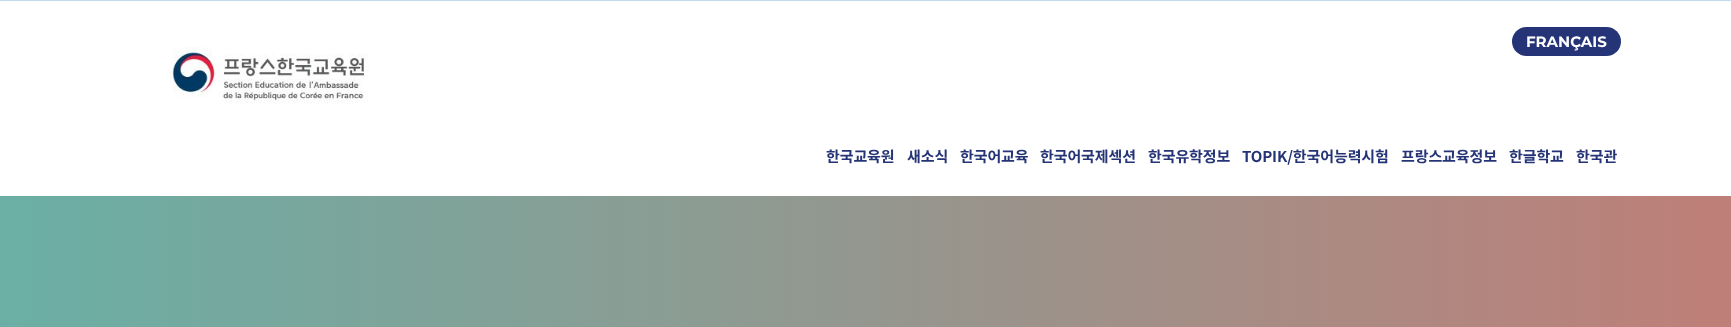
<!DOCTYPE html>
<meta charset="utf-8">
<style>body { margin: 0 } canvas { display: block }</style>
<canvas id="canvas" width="1731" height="327"></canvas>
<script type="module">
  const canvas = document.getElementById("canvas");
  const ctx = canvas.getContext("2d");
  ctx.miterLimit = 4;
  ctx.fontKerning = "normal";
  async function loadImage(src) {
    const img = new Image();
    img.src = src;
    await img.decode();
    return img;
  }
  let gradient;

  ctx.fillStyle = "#ffffff";
  ctx.fillRect(0, 0, 1731, 327);
  ctx.fillStyle = "#c3d8f2";
  ctx.fillRect(0, 0, 1731, 1);
  ctx.fillStyle = "#253476";
  ctx.beginPath();
  ctx.roundRect(1512, 27, 109, 29, 14.5);
  ctx.fill();
  ctx.font = "bold 15px Montserrat";
  ctx.fillStyle = "#ffffff";
  ctx.fillText("FRANÇAIS", 1526, 47);
  ctx.drawImage(await loadImage("img1.png"), 169, 47, 200, 57);
  ctx.letterSpacing = "-0.1px";
  ctx.font = "bold 15px Noto Sans KR";
  ctx.fillStyle = "#253476";
  ctx.fillText("한국교육원", 826, 162);
  ctx.fillText("새소식", 907, 162);
  ctx.fillText("한국어교육", 960, 162);
  ctx.fillText("한국어국제섹션", 1040, 162);
  ctx.fillText("한국유학정보", 1148, 162);
  ctx.fillText("TOPIK/한국어능력시험", 1242, 162);
  ctx.fillText("프랑스교육정보", 1401, 162);
  ctx.fillText("한글학교", 1509, 162);
  ctx.fillText("한국관", 1576, 162);
  gradient = ctx.createLinearGradient(0, 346, 1731, 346);
  gradient.addColorStop(0, "#6aafa5");
  gradient.addColorStop(1, "#be7f78");
  ctx.fillStyle = gradient;
  ctx.fillRect(0, 196, 1731, 131);
</script>
